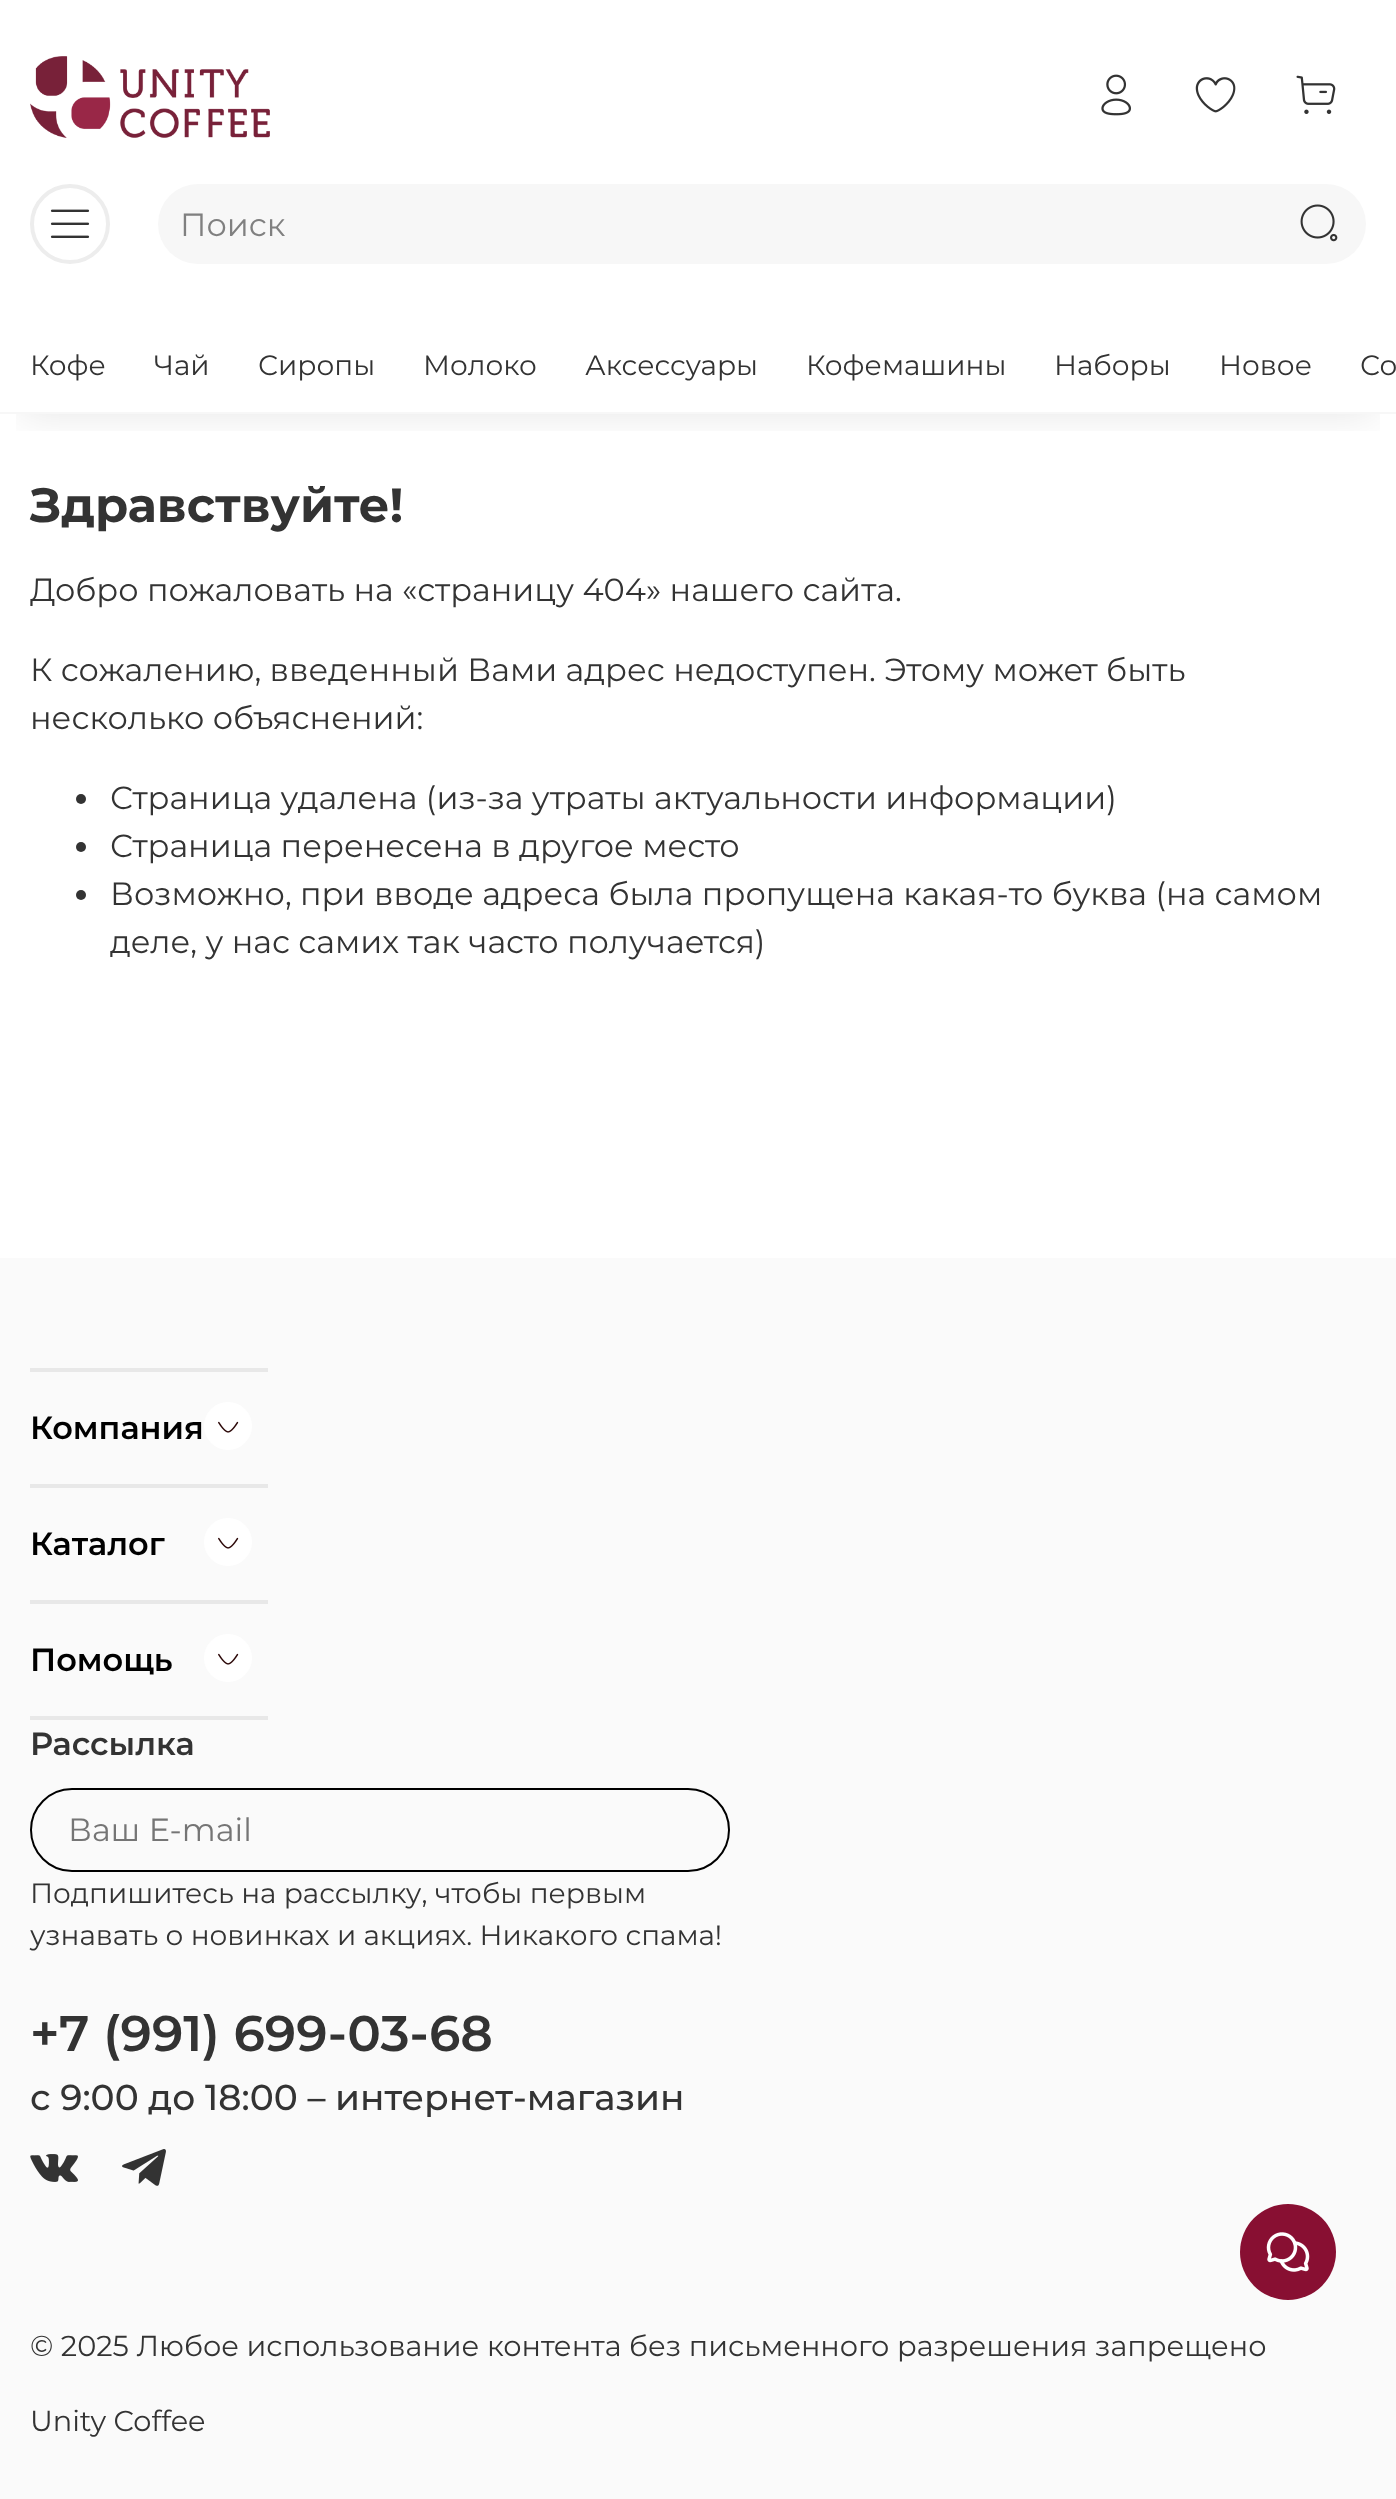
<!DOCTYPE html>
<meta charset="utf-8">
<style>body { margin: 0 } canvas { display: block }</style>
<canvas id="canvas" width="1396" height="2499"></canvas>
<script type="module">
  const canvas = document.getElementById("canvas");
  const ctx = canvas.getContext("2d");
  ctx.miterLimit = 4;
  ctx.fontKerning = "normal";
  async function loadImage(src) {
    const img = new Image();
    img.src = src;
    await img.decode();
    return img;
  }

  ctx.fillStyle = "#ffffff";
  ctx.fillRect(0, 0, 1396, 2499);
  ctx.drawImage(await loadImage("img1.png"), 30, 56, 240, 82);
  ctx.drawImage(await loadImage("img2.png"), 1101, 74, 30, 42);
  ctx.drawImage(await loadImage("img3.png"), 1195, 77, 41, 36);
  ctx.drawImage(await loadImage("img4.png"), 1296, 75, 40, 39);
  ctx.beginPath();
  ctx.arc(70, 224, 38, 0, Math.PI * 2);
  ctx.strokeStyle = "#ededed";
  ctx.lineWidth = 4;
  ctx.stroke();
  ctx.drawImage(await loadImage("img5.png"), 50, 209, 40, 29);
  ctx.fillStyle = "#f7f7f7";
  ctx.beginPath();
  ctx.roundRect(158, 184, 1208, 80, 40);
  ctx.fill();
  ctx.font = "32px Montserrat";
  ctx.fillStyle = "#808080";
  ctx.fillText("Поиск", 180, 236);
  ctx.drawImage(await loadImage("img6.png"), 1300, 204, 38, 38);
  ctx.save();
  ctx.beginPath();
  ctx.rect(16, 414, 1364, 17);
  ctx.clip();
  ctx.fillStyle = "rgba(0, 0, 0, 0.1)";
  ctx.filter = "blur(20px)";
  ctx.beginPath();
  ctx.rect(20, 360, 1356, 54);
  ctx.fill();
  ctx.filter = "none";
  ctx.restore();
  ctx.fillStyle = "#f7f7f7";
  ctx.fillRect(0, 412, 1396, 2);
  ctx.font = "28px Montserrat";
  ctx.fillStyle = "#333333";
  ctx.fillText("Кофе", 30, 375);
  ctx.fillText("Чай", 154, 375);
  ctx.fillText("Сиропы", 258, 375);
  ctx.fillText("Молоко", 423, 375);
  ctx.fillText("Аксессуары", 585, 375);
  ctx.fillText("Кофемашины", 806, 375);
  ctx.fillText("Наборы", 1054, 375);
  ctx.fillText("Новое", 1219, 375);
  ctx.fillText("Со", 1360, 375);
  ctx.font = "bold 48px Montserrat";
  ctx.fillText("Здравствуйте!", 30, 522);
  ctx.font = "32px Montserrat";
  ctx.fillText("Добро пожаловать на «страницу 404» нашего сайта.", 30, 601);
  ctx.fillText("К сожалению, введенный Вами адрес недоступен. Этому может быть", 30, 681);
  ctx.fillText("несколько объяснений:", 30, 729);
  ctx.beginPath();
  ctx.arc(81, 799, 5, 0, Math.PI * 2);
  ctx.fill();
  ctx.fillText("Страница удалена (из-за утраты актуальности информации)", 110, 809);
  ctx.beginPath();
  ctx.arc(81, 847, 5, 0, Math.PI * 2);
  ctx.fill();
  ctx.fillText("Страница перенесена в другое место", 110, 857);
  ctx.beginPath();
  ctx.arc(81, 895, 5, 0, Math.PI * 2);
  ctx.fill();
  ctx.fillText("Возможно, при вводе адреса была пропущена какая-то буква (на самом", 110, 905);
  ctx.fillText("деле, у нас самих так часто получается)", 110, 953);
  ctx.fillStyle = "#fafafa";
  ctx.fillRect(0, 1258, 1396, 1241);
  ctx.fillStyle = "#e8e8e8";
  ctx.fillRect(30, 1368, 238, 4);
  ctx.font = "600 32px Montserrat";
  ctx.fillStyle = "#000000";
  ctx.fillText("Компания", 30, 1439);
  ctx.fillStyle = "#ffffff";
  ctx.beginPath();
  ctx.arc(228, 1426, 24, 0, Math.PI * 2);
  ctx.fill();
  ctx.drawImage(await loadImage("img7.png"), 218, 1421, 21, 12);
  ctx.fillStyle = "#e8e8e8";
  ctx.fillRect(30, 1484, 238, 4);
  ctx.fillStyle = "#000000";
  ctx.fillText("Каталог", 30, 1555);
  ctx.fillStyle = "#ffffff";
  ctx.beginPath();
  ctx.arc(228, 1542, 24, 0, Math.PI * 2);
  ctx.fill();
  ctx.drawImage(await loadImage("img7.png"), 218, 1537, 21, 12);
  ctx.fillStyle = "#e8e8e8";
  ctx.fillRect(30, 1600, 238, 4);
  ctx.fillRect(30, 1716, 238, 4);
  ctx.fillStyle = "#000000";
  ctx.fillText("Помощь", 30, 1671);
  ctx.fillStyle = "#ffffff";
  ctx.beginPath();
  ctx.arc(228, 1658, 24, 0, Math.PI * 2);
  ctx.fill();
  ctx.drawImage(await loadImage("img7.png"), 218, 1653, 21, 12);
  ctx.fillStyle = "#333333";
  ctx.fillText("Рассылка", 30, 1755);
  ctx.beginPath();
  ctx.roundRect(31, 1789, 698, 82, 41);
  ctx.strokeStyle = "#000000";
  ctx.lineWidth = 2;
  ctx.stroke();
  ctx.font = "32px Montserrat";
  ctx.fillStyle = "#757575";
  ctx.fillText("Ваш E-mail", 68, 1841);
  ctx.font = "28px Montserrat";
  ctx.fillStyle = "#333333";
  ctx.fillText("Подпишитесь на рассылку, чтобы первым", 30, 1903);
  ctx.fillText("узнавать о новинках и акциях. Никакого спама!", 30, 1945);
  ctx.font = "600 50px Montserrat";
  ctx.fillText("+7 (991) 699-03-68", 30, 2051);
  ctx.font = "500 36px Montserrat";
  ctx.fillText("с 9:00 до 18:00 – интернет-магазин", 30, 2110);
  ctx.drawImage(await loadImage("img8.png"), 30, 2154, 48, 28);
  ctx.drawImage(await loadImage("img9.png"), 122, 2149, 44, 37);
  ctx.font = "28.8px Montserrat";
  ctx.fillText("© 2025 Любое использование контента без письменного разрешения запрещено", 30, 2356);
  ctx.fillText("Unity Coffee", 30, 2431);
  ctx.fillStyle = "#880f32";
  ctx.beginPath();
  ctx.arc(1288, 2252, 48, 0, Math.PI * 2);
  ctx.fill();
  ctx.drawImage(await loadImage("img10.png"), 1266, 2232, 44, 40);
</script>
